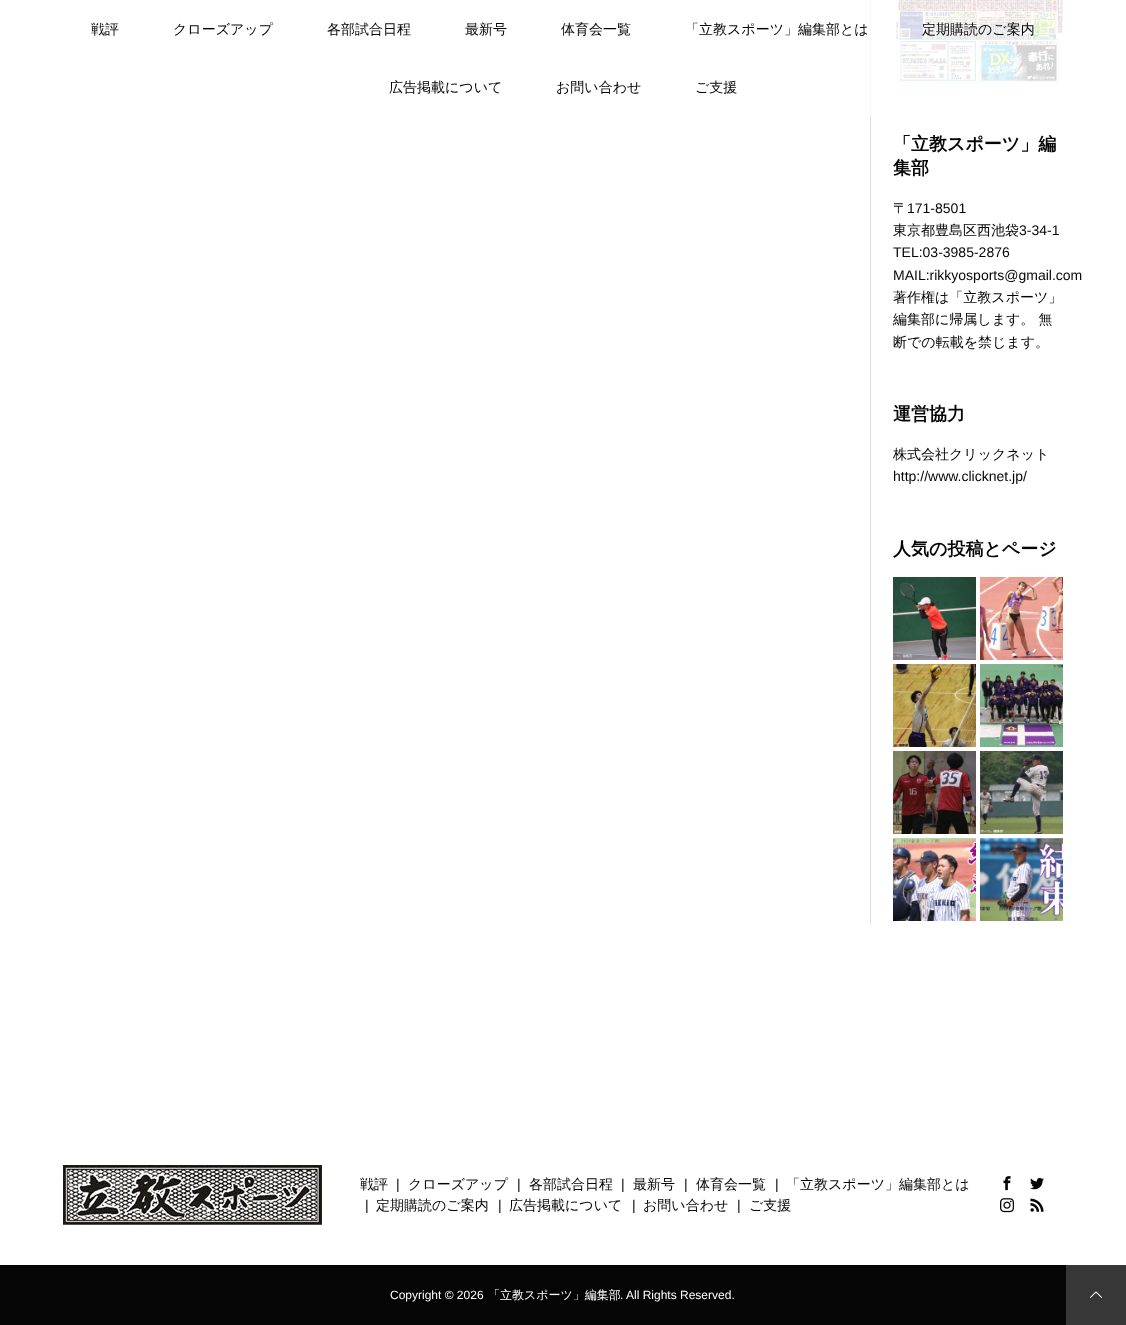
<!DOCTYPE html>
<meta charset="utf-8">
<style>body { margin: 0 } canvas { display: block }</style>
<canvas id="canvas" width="1126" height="1325"></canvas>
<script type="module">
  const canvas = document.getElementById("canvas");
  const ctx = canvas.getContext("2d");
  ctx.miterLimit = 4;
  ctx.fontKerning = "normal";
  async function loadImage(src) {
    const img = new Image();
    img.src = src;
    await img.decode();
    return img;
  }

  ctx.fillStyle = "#ffffff";
  ctx.fillRect(0, 0, 1126, 1325);
  ctx.font = "500 14px WenQuanYi Zen Hei";
  ctx.fillStyle = "#050505";
  ctx.fillText("戦評", 91, 34);
  ctx.fillText("クローズアップ", 173, 34);
  ctx.fillText("各部試合日程", 327, 34);
  ctx.fillText("最新号", 465, 34);
  ctx.fillText("体育会一覧", 561, 34);
  ctx.fillText("「立教スポーツ」編集部とは", 685, 34);
  ctx.drawImage(await loadImage("img1.png"), 896, 0, 167, 83);
  ctx.fillText("定期購読のご案内", 922, 34);
  ctx.fillText("広告掲載について", 389, 92);
  ctx.fillText("お問い合わせ", 556, 92);
  ctx.fillText("ご支援", 695, 92);
  ctx.fillStyle = "#dedede";
  ctx.fillRect(870, 116, 1, 809);
  ctx.fillStyle = "#f8f8f8";
  ctx.fillRect(870, 0, 1, 116);
  ctx.font = "bold 18px WenQuanYi Zen Hei";
  ctx.fillStyle = "#050505";
  ctx.fillText("「立教スポーツ」編", 893, 150);
  ctx.fillText("集部", 893, 174);
  ctx.font = "500 14px WenQuanYi Zen Hei";
  ctx.fillText("〒", 893, 213);
  ctx.font = "14px Liberation Sans";
  ctx.fillText("171-8501", 907, 213);
  ctx.font = "500 14px WenQuanYi Zen Hei";
  ctx.fillText("東京都豊島区西池袋", 893, 235);
  ctx.font = "14px Liberation Sans";
  ctx.fillText("3-34-1", 1019, 235);
  ctx.fillText("TEL:03-3985-2876", 893, 257);
  ctx.fillText("MAIL:rikkyosports@gmail.com", 893, 280);
  ctx.font = "500 14px WenQuanYi Zen Hei";
  ctx.fillText("著作権は「立教スポーツ」", 893, 302);
  ctx.fillText("編集部に帰属します。 無", 893, 324);
  ctx.fillText("断での転載を禁じます。", 893, 347);
  ctx.font = "bold 18px WenQuanYi Zen Hei";
  ctx.fillText("運営協力", 893, 420);
  ctx.font = "500 14px WenQuanYi Zen Hei";
  ctx.fillText("株式会社クリックネット", 893, 459);
  ctx.font = "14px Liberation Sans";
  ctx.fillText("http://www.clicknet.jp/", 893, 481);
  ctx.font = "bold 18px WenQuanYi Zen Hei";
  ctx.fillText("人気の投稿とページ", 893, 555);
  ctx.drawImage(await loadImage("img2.png"), 893, 577, 83, 83);
  ctx.drawImage(await loadImage("img3.png"), 980, 577, 83, 83);
  ctx.drawImage(await loadImage("img4.png"), 893, 664, 83, 83);
  ctx.drawImage(await loadImage("img5.png"), 980, 664, 83, 83);
  ctx.drawImage(await loadImage("img6.png"), 893, 751, 83, 83);
  ctx.drawImage(await loadImage("img7.png"), 980, 751, 83, 83);
  ctx.drawImage(await loadImage("img8.png"), 893, 838, 83, 83);
  ctx.drawImage(await loadImage("img9.png"), 980, 838, 83, 83);
  ctx.drawImage(await loadImage("img10.png"), 63, 1165, 259, 60);
  ctx.font = "500 14px WenQuanYi Zen Hei";
  ctx.fillText("戦評", 360, 1189);
  ctx.font = "14px Liberation Sans";
  ctx.fillText("|", 396, 1189);
  ctx.font = "500 14px WenQuanYi Zen Hei";
  ctx.fillText("クローズアップ", 408, 1189);
  ctx.font = "14px Liberation Sans";
  ctx.fillText("|", 517, 1189);
  ctx.font = "500 14px WenQuanYi Zen Hei";
  ctx.fillText("各部試合日程", 529, 1189);
  ctx.font = "14px Liberation Sans";
  ctx.fillText("|", 621, 1189);
  ctx.font = "500 14px WenQuanYi Zen Hei";
  ctx.fillText("最新号", 633, 1189);
  ctx.font = "14px Liberation Sans";
  ctx.fillText("|", 684, 1189);
  ctx.font = "500 14px WenQuanYi Zen Hei";
  ctx.fillText("体育会一覧", 696, 1189);
  ctx.font = "14px Liberation Sans";
  ctx.fillText("|", 775, 1189);
  ctx.font = "500 14px WenQuanYi Zen Hei";
  ctx.fillText("「立教スポーツ」編集部とは", 786, 1189);
  ctx.font = "14px Liberation Sans";
  ctx.fillText("|", 365, 1210);
  ctx.font = "500 14px WenQuanYi Zen Hei";
  ctx.fillText("定期購読のご案内", 376, 1210);
  ctx.font = "14px Liberation Sans";
  ctx.fillText("|", 498, 1210);
  ctx.font = "500 14px WenQuanYi Zen Hei";
  ctx.fillText("広告掲載について", 509, 1210);
  ctx.font = "14px Liberation Sans";
  ctx.fillText("|", 632, 1210);
  ctx.font = "500 14px WenQuanYi Zen Hei";
  ctx.fillText("お問い合わせ", 643, 1210);
  ctx.font = "14px Liberation Sans";
  ctx.fillText("|", 737, 1210);
  ctx.font = "500 14px WenQuanYi Zen Hei";
  ctx.fillText("ご支援", 749, 1210);
  ctx.drawImage(await loadImage("img11.png"), 1003, 1176, 8, 15);
  ctx.drawImage(await loadImage("img12.png"), 1030, 1177, 14, 13);
  ctx.drawImage(await loadImage("img13.png"), 1000, 1198, 14, 15);
  ctx.drawImage(await loadImage("img14.png"), 1030, 1198, 14, 14);
  ctx.fillRect(0, 1265, 1066, 60);
  ctx.font = "12px Liberation Sans";
  ctx.fillStyle = "#ffffff";
  ctx.fillText("Copyright © 2026", 390, 1299);
  ctx.font = "500 12px WenQuanYi Zen Hei";
  ctx.fillText("「立教スポーツ」編集部", 488, 1299);
  ctx.font = "12px Liberation Sans";
  ctx.fillText(". All Rights Reserved.", 620, 1299);
  ctx.fillStyle = "#373737";
  ctx.fillRect(1066, 1265, 60, 60);
  ctx.drawImage(await loadImage("img15.png"), 1090, 1291, 12, 7);
</script>
